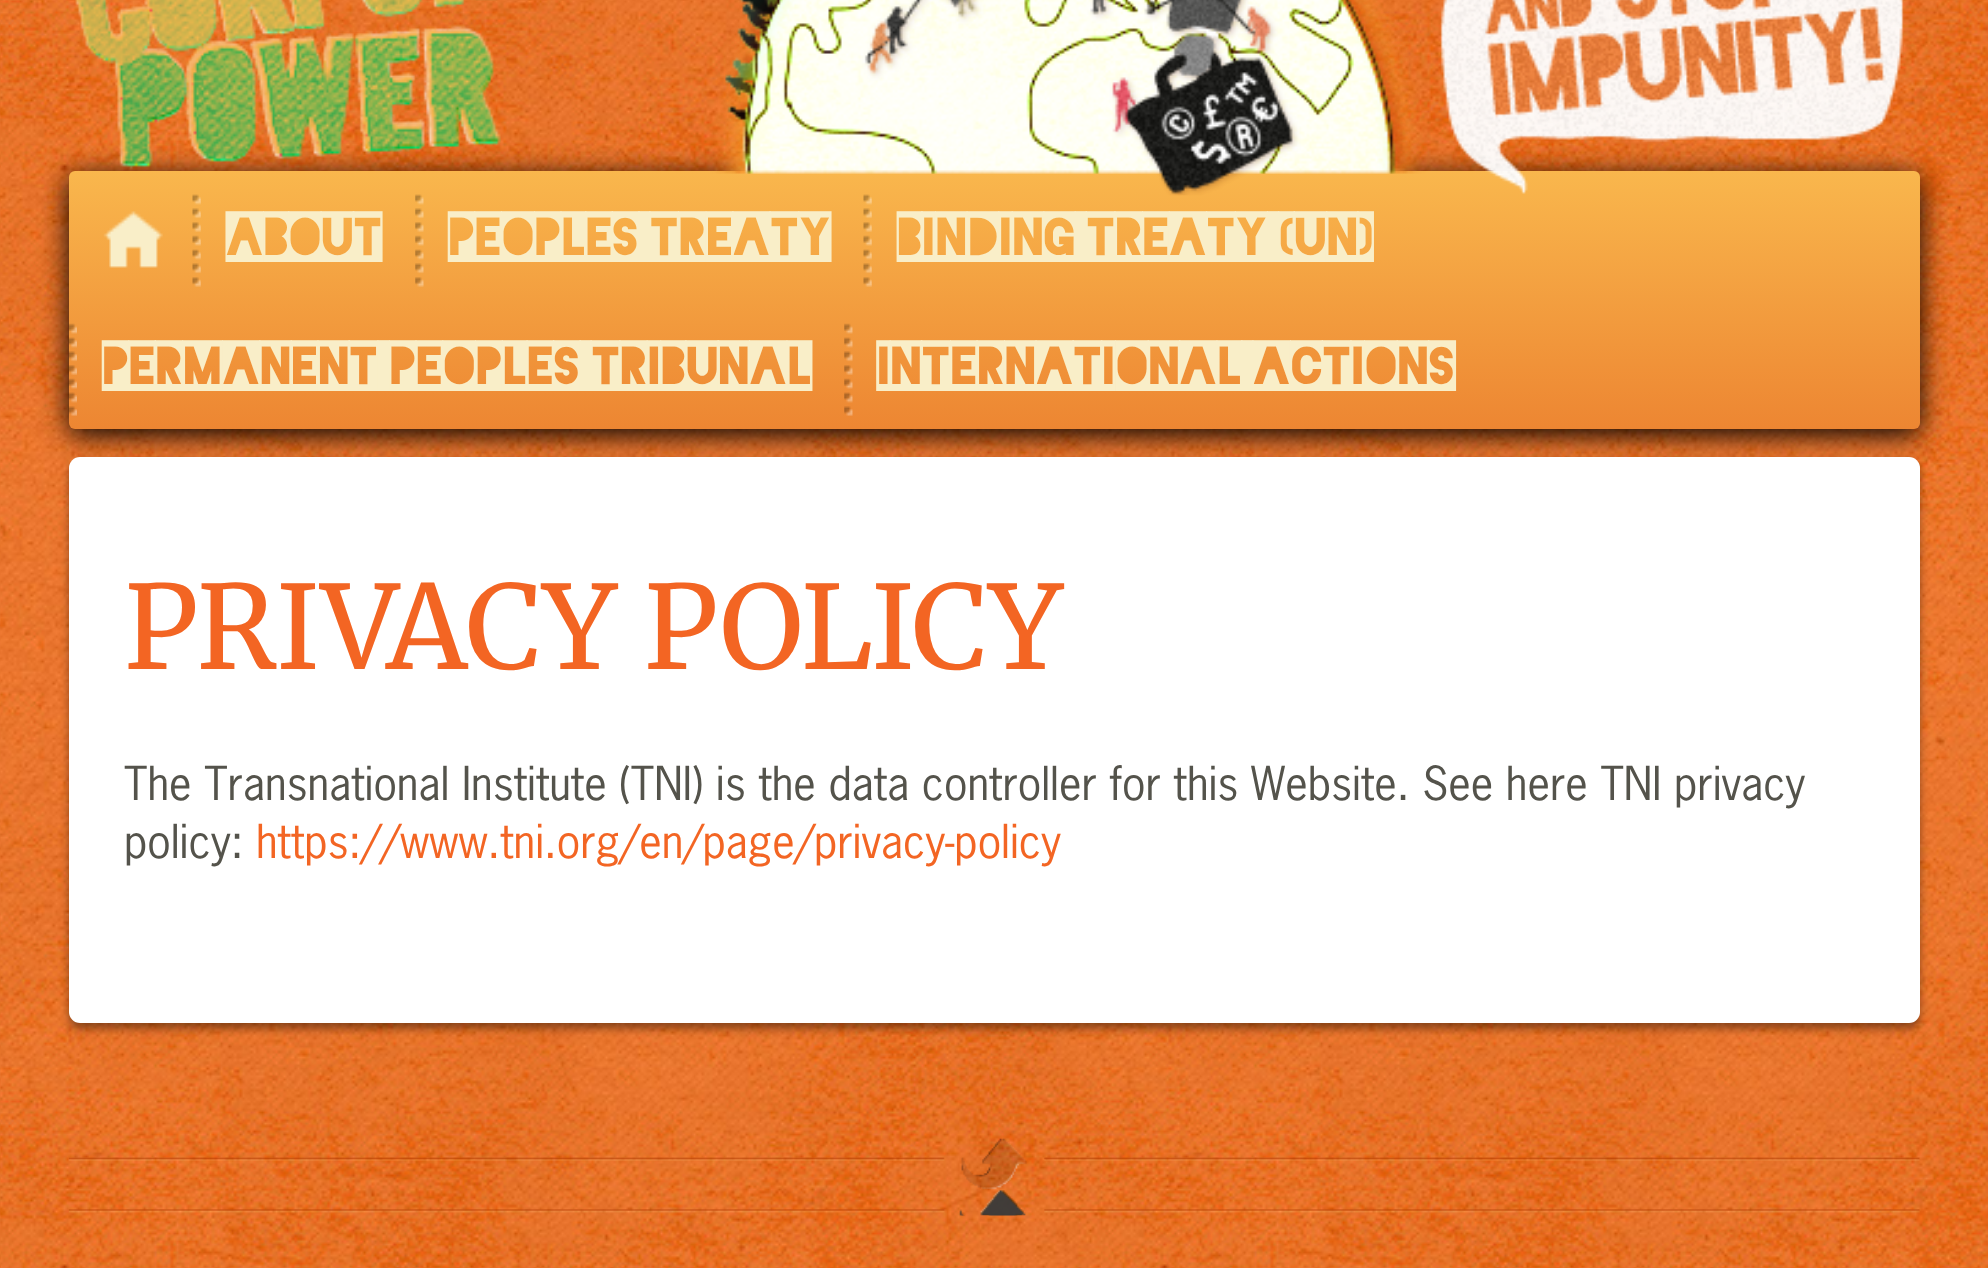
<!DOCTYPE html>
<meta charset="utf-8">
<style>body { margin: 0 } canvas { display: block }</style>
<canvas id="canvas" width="1988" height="1268"></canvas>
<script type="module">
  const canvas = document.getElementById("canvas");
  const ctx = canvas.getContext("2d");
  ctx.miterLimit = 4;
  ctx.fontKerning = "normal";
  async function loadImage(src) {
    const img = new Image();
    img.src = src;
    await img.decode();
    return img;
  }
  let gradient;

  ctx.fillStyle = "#ffffff";
  ctx.fillRect(0, 0, 1988, 1268);
  ctx.drawImage(await loadImage("img1.png"), 0, 0, 1988, 1268);
  ctx.fillStyle = "#000000";
  ctx.filter = "blur(14px)";
  ctx.beginPath();
  ctx.roundRect(69, 176, 1851, 259, 6);
  ctx.fill();
  ctx.filter = "none";
  gradient = ctx.createLinearGradient(994, 170, 994, 429);
  gradient.addColorStop(0, "#f9b74d");
  gradient.addColorStop(1, "#ed8632");
  ctx.fillStyle = gradient;
  ctx.beginPath();
  ctx.roundRect(69, 171, 1851, 258, 6);
  ctx.fill();
  ctx.drawImage(await loadImage("img2.png"), 75, 0, 1829, 196);
  ctx.drawImage(await loadImage("img3.png"), 103, 211, 60, 57);
  ctx.drawImage(await loadImage("img4.png"), 192, 194, 9, 93);
  ctx.font = "900 60.5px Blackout";
  ctx.fillStyle = "#f9eec8";
  ctx.fillText("ABOUT", 226, 262);
  ctx.drawImage(await loadImage("img5.png"), 415, 194, 9, 93);
  ctx.fillText("PEOPLES TREATY", 448, 262);
  ctx.drawImage(await loadImage("img4.png"), 863, 194, 9, 93);
  ctx.fillText("BINDING TREATY (UN)", 897, 262);
  ctx.drawImage(await loadImage("img6.png"), 68, 323, 9, 93);
  ctx.fillText("PERMANENT PEOPLES TRIBUNAL", 102, 391);
  ctx.drawImage(await loadImage("img7.png"), 844, 323, 9, 93);
  ctx.fillText("INTERNATIONAL ACTIONS", 877, 391);
  ctx.fillStyle = "rgba(0, 0, 0, 0.4)";
  ctx.filter = "blur(4px)";
  ctx.beginPath();
  ctx.roundRect(69, 462, 1851, 567, 11);
  ctx.fill();
  ctx.filter = "none";
  ctx.fillStyle = "#ffffff";
  ctx.beginPath();
  ctx.roundRect(69, 457, 1851, 566, 11);
  ctx.fill();
  ctx.font = "300 115.5px Merriweather";
  ctx.fillStyle = "#f36523";
  ctx.fillText("PRIVACY POLICY", 124, 669);
  ctx.font = "44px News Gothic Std";
  ctx.fillStyle = "#54534b";
  ctx.fillText("The Transnational Institute (TNI) is the data controller for this Website. See here TNI privacy", 124, 800);
  ctx.fillText("policy:", 124, 858);
  ctx.fillStyle = "#f36523";
  ctx.fillText("https://www.tni.org/en/page/privacy-policy", 256, 858);
  ctx.drawImage(await loadImage("img8.png"), 68, 1138, 1852, 78);
</script>
